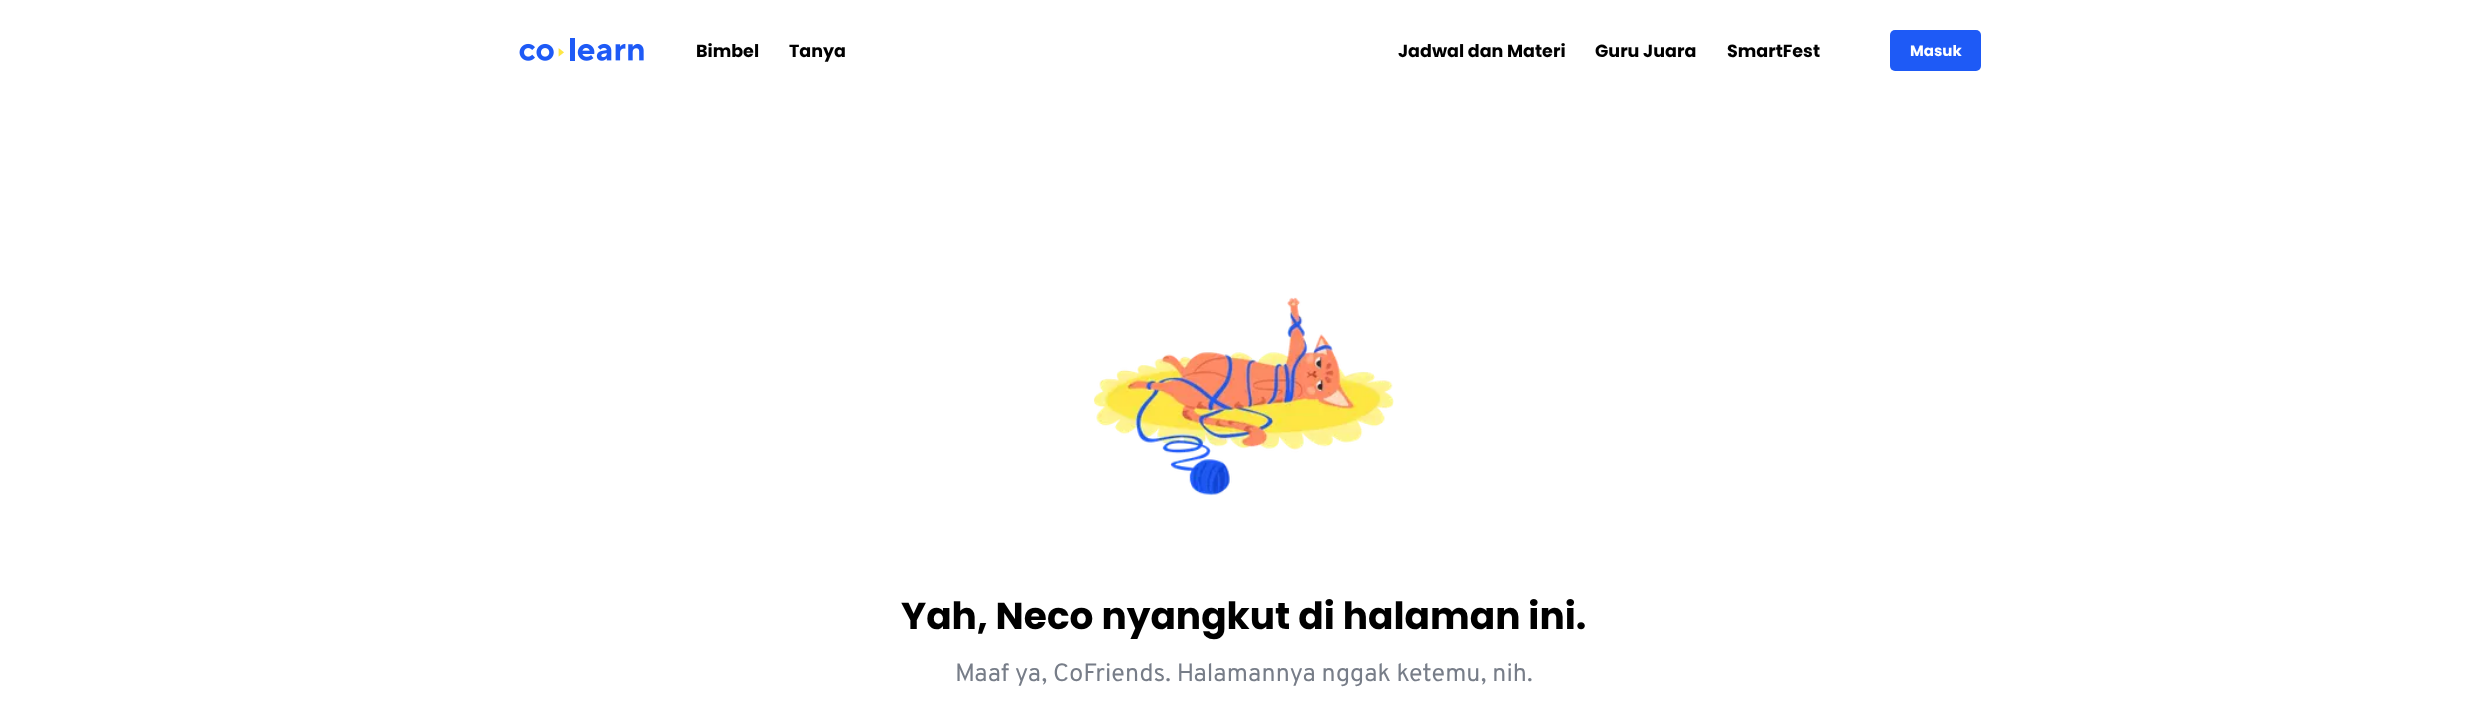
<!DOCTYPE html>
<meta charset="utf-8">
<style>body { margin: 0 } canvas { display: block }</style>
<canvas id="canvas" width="2487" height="723"></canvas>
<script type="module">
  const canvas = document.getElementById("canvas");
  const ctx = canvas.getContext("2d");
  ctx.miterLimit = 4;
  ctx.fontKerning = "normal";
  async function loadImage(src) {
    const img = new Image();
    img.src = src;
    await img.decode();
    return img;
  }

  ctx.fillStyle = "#ffffff";
  ctx.fillRect(0, 0, 2487, 723);
  ctx.drawImage(await loadImage("img1.png"), 519, 38, 125, 23);
  ctx.font = "bold 17.5px Poppins";
  ctx.fillStyle = "#000000";
  ctx.fillText("Bimbel", 696, 57);
  ctx.fillText("Tanya", 789, 57);
  ctx.fillText("Jadwal dan Materi", 1398, 57);
  ctx.fillText("Guru Juara", 1595, 57);
  ctx.fillText("SmartFest", 1727, 57);
  ctx.fillStyle = "#1e5af6";
  ctx.beginPath();
  ctx.roundRect(1890, 30, 91, 41, 5);
  ctx.fill();
  ctx.font = "bold 15px Poppins";
  ctx.fillStyle = "#ffffff";
  ctx.fillText("Masuk", 1910, 56);
  ctx.drawImage(await loadImage("img2.png"), 1093, 297, 301, 199);
  ctx.font = "bold 37.5px Poppins";
  ctx.fillStyle = "#000000";
  ctx.fillText("Yah, Neco nyangkut di halaman ini.", 901, 629);
  ctx.font = "25px Overpass";
  ctx.fillStyle = "#777d88";
  ctx.fillText("Maaf ya, CoFriends. Halamannya nggak ketemu, nih.", 955, 681);
</script>
